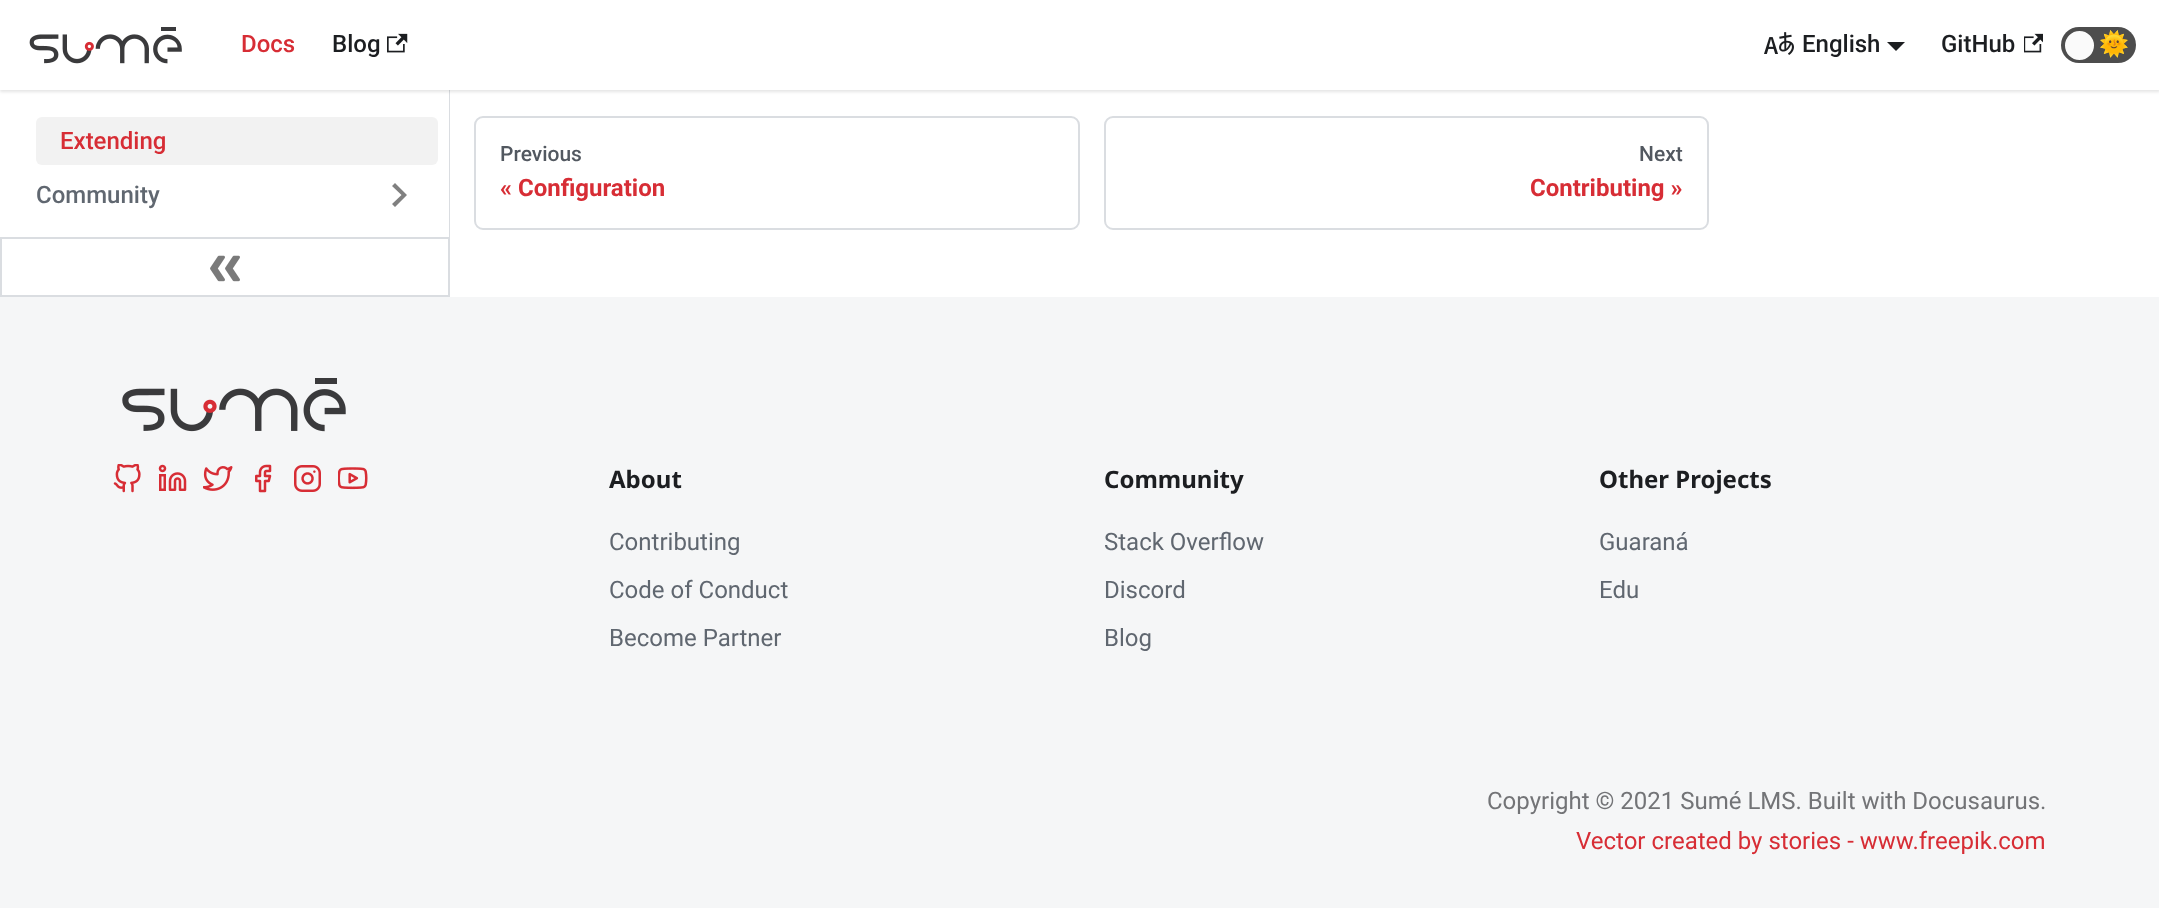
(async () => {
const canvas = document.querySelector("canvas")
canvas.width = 2159
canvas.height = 908
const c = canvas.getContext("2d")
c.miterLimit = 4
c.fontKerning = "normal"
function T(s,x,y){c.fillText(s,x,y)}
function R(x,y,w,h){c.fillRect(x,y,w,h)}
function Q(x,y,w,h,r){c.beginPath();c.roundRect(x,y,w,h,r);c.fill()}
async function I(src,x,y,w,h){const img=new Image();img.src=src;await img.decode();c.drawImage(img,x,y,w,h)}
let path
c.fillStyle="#fff"
R(0,0,2159,908)
c.fillStyle="#dadde1"
R(449,90,1,147)
c.fillStyle="#0000001a"
c.filter="blur(1.5px)"
c.beginPath()
c.rect(0,2,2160,90)
c.fill()
c.filter="none"
c.fillStyle="#fff"
R(0,0,2159,90)
await I("1.png",29,27,153,37)
c.font="500 24px Roboto"
c.fillStyle="#d72d35"
T("Docs",241,52)
c.fillStyle="#1c1e21"
T("Blog",332,52)
await I("2.png",387,33,21,20)
await I("3.png",1764,32,30,23)
T("English",1802,52)
path = new Path2D("M1887 42h18l-9 9z")
c.fill(path)
T("GitHub",1941,52)
await I("4.png",2024,33,19,20)
c.fillStyle="#4d4d4d"
Q(2061,27,75,36,18)
c.fillStyle="#fafafa"
c.beginPath()
c.arc(2079.5,45.5,15.5,0,7)
c.fill()
c.strokeStyle="#4d4d4d"
c.lineWidth=2
c.stroke()
c.font="24px Noto Color Emoji"
c.fillStyle="#1c1e21"
T("🌞",2099,52)
c.fillStyle="#f2f2f2"
Q(36,117,402,48,6)
c.font="500 24px Roboto"
c.fillStyle="#d72d35"
T("Extending",60,149)
c.fillStyle="#606770"
T("Community",36,203)
c.fillStyle="#808080"
path = new Path2D("M392 186l9.5 9l-9.5 9l3 3l12-12l-12-12z")
c.fill(path)
c.strokeStyle="#dadde1"
c.strokeRect(1,238,448,58)
await I("5.png",210,255,30,27)
c.beginPath()
c.roundRect(475,117,604,112,8)
c.stroke()
c.font="500 21px Roboto"
c.fillStyle="#525860"
T("Previous",500,161)
c.font="bold 24px Roboto"
c.fillStyle="#d72d35"
T("« Configuration",500,196)
c.beginPath()
c.roundRect(1105,117,603,112,8)
c.stroke()
c.font="500 21px Roboto"
c.fillStyle="#525860"
T("Next",1639,161)
c.font="bold 24px Roboto"
c.fillStyle="#d72d35"
T("Contributing »",1530,196)
c.fillStyle="#f5f6f7"
R(0,297,2159,611)
await I("6.png",122,378,224,54)
await I("7.png",113,464,28,29)
await I("8.png",158,464,29,27)
await I("9.png",203,466,30,25)
await I("10.png",255,464,17,29)
await I("11.png",294,465,27,27)
await I("12.png",338,467,30,23)
c.font="bold 24px Noto Sans"
c.fillStyle="#1c1e21"
T("About",609,488)
c.font="24px Roboto"
c.fillStyle="#606770"
T("Contributing",609,550)
T("Code of Conduct",609,598)
T("Become Partner",609,646)
c.font="bold 24px Noto Sans"
c.fillStyle="#1c1e21"
T("Community",1104,488)
c.font="24px Roboto"
c.fillStyle="#606770"
T("Stack Overflow",1104,550)
T("Discord",1104,598)
T("Blog",1104,646)
c.font="bold 24px Noto Sans"
c.fillStyle="#1c1e21"
T("Other Projects",1599,488)
c.font="24px Roboto"
c.fillStyle="#606770"
T("Guaraná",1599,550)
T("Edu",1599,598)
c.fillStyle="#737477"
T("Copyright © 2021 Sumé LMS. Built with Docusaurus.",1487,809)
c.fillStyle="#d72d35"
T("Vector created by stories - www.freepik.com",1576,849)
})()
